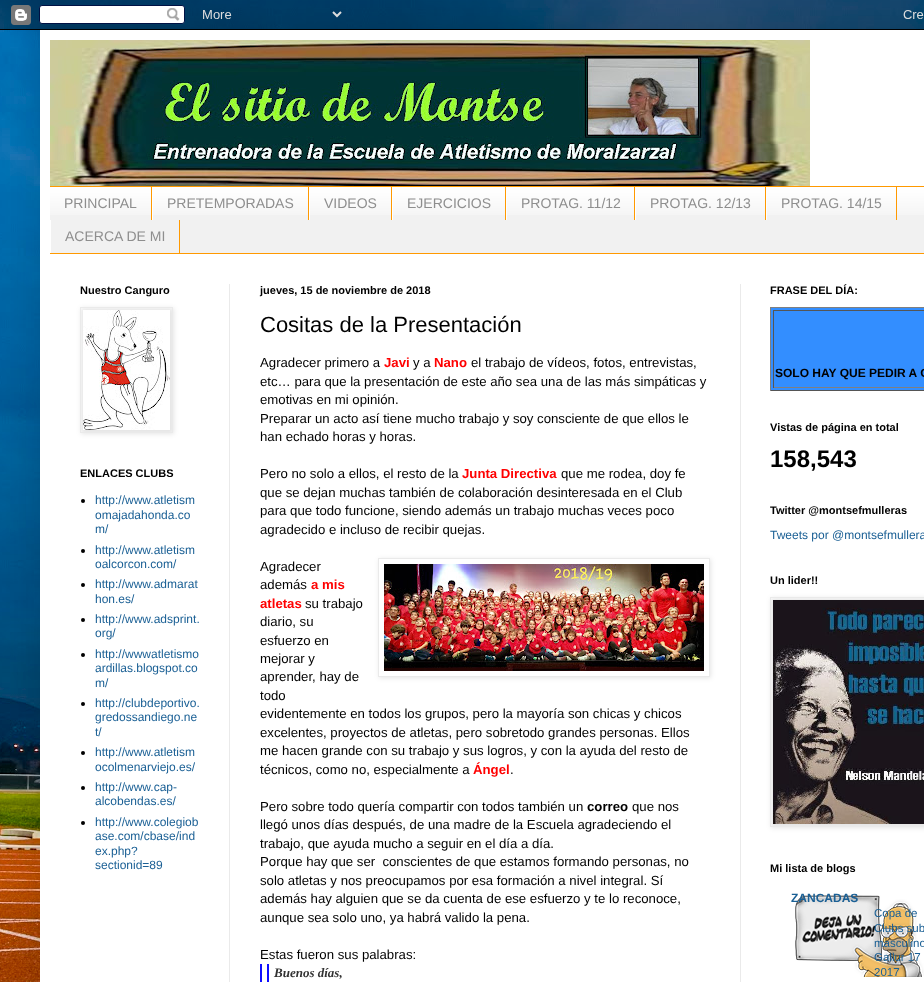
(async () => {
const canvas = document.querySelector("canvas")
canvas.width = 924
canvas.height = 982
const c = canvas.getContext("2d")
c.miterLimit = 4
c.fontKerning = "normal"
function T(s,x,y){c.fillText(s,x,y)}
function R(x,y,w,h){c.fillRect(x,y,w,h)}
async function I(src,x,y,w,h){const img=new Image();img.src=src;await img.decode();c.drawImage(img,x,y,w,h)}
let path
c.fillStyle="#fff"
R(0,0,924,982)
await I("1.png",0,0,924,982)
c.fillStyle="#00000026"
c.filter="blur(20px)"
c.beginPath()
c.rect(40,30,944,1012)
c.fill()
c.filter="none"
await I("2.png",0,0,924,30)
c.fillStyle="#fff"
R(40,30,884,952)
await I("3.png",50,40,760,146)
c.fillStyle="#f1f1f1"
R(50,188,874,65)
await I("4.png",50,187,874,28)
c.fillStyle="#f90"
R(50,186,874,1)
R(50,253,874,1)
R(151,187,1,33)
c.font="14px Liberation Sans"
c.fillStyle="#8e8e8e"
T("PRINCIPAL",64,208)
c.fillStyle="#f90"
R(308,187,1,33)
c.fillStyle="#fff"
R(152,187,1,33)
c.fillStyle="#8e8e8e"
T("PRETEMPORADAS",167,208)
c.fillStyle="#f90"
R(391,187,1,33)
c.fillStyle="#fff"
R(309,187,1,33)
c.fillStyle="#8e8e8e"
T("VIDEOS",324,208)
c.fillStyle="#f90"
R(505,187,1,33)
c.fillStyle="#fff"
R(392,187,1,33)
c.fillStyle="#8e8e8e"
T("EJERCICIOS",407,208)
c.fillStyle="#f90"
R(634,187,1,33)
c.fillStyle="#fff"
R(506,187,1,33)
c.fillStyle="#8e8e8e"
T("PROTAG. 11/12",521,208)
c.fillStyle="#f90"
R(765,187,1,33)
c.fillStyle="#fff"
R(635,187,1,33)
c.fillStyle="#8e8e8e"
T("PROTAG. 12/13",650,208)
c.fillStyle="#f90"
R(896,187,1,33)
c.fillStyle="#fff"
R(766,187,1,33)
c.fillStyle="#8e8e8e"
T("PROTAG. 14/15",781,208)
c.fillStyle="#f90"
R(179,220,1,33)
c.fillStyle="#fff"
R(50,220,1,33)
c.fillStyle="#8e8e8e"
T("ACERCA DE MI",65,241)
c.font="bold 11px Liberation Sans"
c.fillStyle="#000"
T("Nuestro Canguro",80,294)
c.fillStyle="#0000001a"
c.filter="blur(2.5px)"
c.beginPath()
c.rect(81,308,93,126)
c.fill()
c.filter="none"
c.strokeStyle="#eaeaea"
c.strokeRect(80.5,307.5,92,125)
await I("5.png",83,310,87,120)
c.fillStyle="#000"
T("ENLACES CLUBS",80,477)
c.beginPath()
c.arc(83,501,2,0,7)
c.fill()
c.font="12px Liberation Sans"
c.fillStyle="#1b6095"
T("http://www.atletism",95,504)
T("omajadahonda.co",95,519)
T("m/",95,533)
c.fillStyle="#000"
c.beginPath()
c.arc(83,551,2,0,7)
c.fill()
c.fillStyle="#1b6095"
T("http://www.atletism",95,554)
T("oalcorcon.com/",95,568)
c.fillStyle="#000"
c.beginPath()
c.arc(83,585,2,0,7)
c.fill()
c.fillStyle="#1b6095"
T("http://www.admarat",95,588)
T("hon.es/",95,603)
c.fillStyle="#000"
c.beginPath()
c.arc(83,620,2,0,7)
c.fill()
c.fillStyle="#1b6095"
T("http://www.adsprint.",95,623)
T("org/",95,637)
c.fillStyle="#000"
c.beginPath()
c.arc(83,655,2,0,7)
c.fill()
c.fillStyle="#1b6095"
T("http://wwwatletismo",95,658)
T("ardillas.blogspot.co",95,672)
T("m/",95,687)
c.fillStyle="#000"
c.beginPath()
c.arc(83,704,2,0,7)
c.fill()
c.fillStyle="#1b6095"
T("http://clubdeportivo.",95,707)
T("gredossandiego.ne",95,721)
T("t/",95,736)
c.fillStyle="#000"
c.beginPath()
c.arc(83,753,2,0,7)
c.fill()
c.fillStyle="#1b6095"
T("http://www.atletism",95,756)
T("ocolmenarviejo.es/",95,771)
c.fillStyle="#000"
c.beginPath()
c.arc(83,788,2,0,7)
c.fill()
c.fillStyle="#1b6095"
T("http://www.cap-",95,791)
T("alcobendas.es/",95,805)
c.fillStyle="#000"
c.beginPath()
c.arc(83,823,2,0,7)
c.fill()
c.fillStyle="#1b6095"
T("http://www.colegiob",95,826)
T("ase.com/cbase/ind",95,840)
T("ex.php?",95,855)
T("sectionid=89",95,869)
await I("6.png",795,895,129,82)
c.font="bold 11px Liberation Sans"
c.fillStyle="#000"
T("jueves, 15 de noviembre de 2018",260,294)
c.font="22px Liberation Sans"
T("Cositas de la Presentación",260,332)
c.font="13.2px Liberation Sans"
T("Agradecer primero a",260,367)
c.font="bold 13.2px Liberation Sans"
c.fillStyle="#f00"
T("Javi",384,367)
c.font="13.2px Liberation Sans"
c.fillStyle="#000"
T("y a",413,367)
c.font="bold 13.2px Liberation Sans"
c.fillStyle="#f00"
T("Nano",434,367)
c.font="13.2px Liberation Sans"
c.fillStyle="#000"
T("el trabajo de vídeos, fotos, entrevistas,",471,367)
T("etc… para que la presentación de este año sea una de las más simpáticas y",260,386)
T("emotivas en mi opinión.",260,404)
T("Preparar un acto así tiene mucho trabajo y soy consciente de que ellos le",260,423)
T("han echado horas y horas.",260,441)
T("Pero no solo a ellos, el resto de la",260,478)
c.font="bold 13.2px Liberation Sans"
c.fillStyle="#f00"
T("Junta Directiva",462,478)
c.font="13.2px Liberation Sans"
c.fillStyle="#000"
T("que me rodea, doy fe",561,478)
T("que se dejan muchas también de colaboración desinteresada en el Club",260,497)
T("para que todo funcione, siendo además un trabajo muchas veces poco",260,515)
T("agradecido e incluso de recibir quejas.",260,534)
T("Agradecer",260,571)
c.save()
path = new Path2D("M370 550h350v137h-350zm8 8h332v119h-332z")
c.clip(path,"evenodd")
c.fillStyle="#0000001a"
c.filter="blur(2.5px)"
c.beginPath()
c.rect(379,559,332,119)
c.fill()
c.filter="none"
c.restore()
c.strokeRect(378.5,558.5,331,118)
await I("7.png",384,564,320,107)
T("además",260,589)
c.font="bold 13.2px Liberation Sans"
c.fillStyle="#f00"
T("a mis",311,589)
T("atletas",260,608)
c.font="13.2px Liberation Sans"
c.fillStyle="#000"
T("su trabajo",305,608)
T("diario, su",260,626)
T("esfuerzo en",260,645)
T("mejorar y",260,663)
T("aprender, hay de",260,681)
T("todo",260,700)
T("evidentemente en todos los grupos, pero la mayoría son chicas y chicos",260,718)
T("excelentes, proyectos de atletas, pero sobretodo grandes personas. Ellos",260,737)
T("me hacen grande con su trabajo y sus logros, y con la ayuda del resto de",260,755)
T("técnicos, como no, especialmente a",260,774)
c.font="bold 13.2px Liberation Sans"
c.fillStyle="#f00"
T("Ángel",473,774)
c.font="13.2px Liberation Sans"
c.fillStyle="#000"
T(".",510,774)
T("Pero sobre todo quería compartir con todos también un",260,811)
c.font="bold 13.2px Liberation Sans"
T("correo",587,811)
c.font="13.2px Liberation Sans"
T("que nos",632,811)
T("llegó unos días después, de una madre de la Escuela agradeciendo el",260,829)
T("trabajo, que ayuda mucho a seguir en el día a día.",260,848)
T("Porque hay que ser  conscientes de que estamos formando personas, no",260,866)
T("solo atletas y nos preocupamos por esa formación a nivel integral. Sí",260,885)
T("además hay alguien que se da cuenta de ese esfuerzo y te lo reconoce,",260,903)
T("aunque sea solo uno, ya habrá valido la pena.",260,922)
T("Estas fueron sus palabras:",260,959)
c.fillStyle="#1010ff"
R(260,964,2,18)
R(267,964,2,18)
c.font="italic bold 13px Liberation Serif"
c.fillStyle="#333"
T("Buenos días,",274,977)
c.font="bold 11px Liberation Sans"
c.fillStyle="#000"
T("FRASE DEL DÍA:",770,294)
c.fillStyle="#338eff"
R(771,308,153,82)
c.fillStyle="#808080"
R(770,307,154,1)
c.fillStyle="#555"
R(770,390,154,1)
c.fillStyle="#808080"
R(770,307,1,84)
c.fillStyle="#555"
R(773,310,151,1)
c.fillStyle="#808080"
R(773,387,151,1)
c.fillStyle="#555"
R(773,310,1,78)
c.font="bold 12px Liberation Sans"
c.fillStyle="#000"
T("SOLO HAY QUE PEDIR A C",775,377)
c.font="bold 11px Liberation Sans"
T("Vistas de página en total",770,431)
c.font="bold 24px Liberation Sans"
T("158,543",770,467)
c.font="bold 11px Liberation Sans"
T("Twitter @montsefmulleras",770,514)
c.font="12px Liberation Sans"
c.fillStyle="#1b6095"
T("Tweets por @montsefmullera",770,539)
c.font="bold 11px Liberation Sans"
c.fillStyle="#000"
T("Un lider!!",770,584)
c.fillStyle="#0000001a"
c.filter="blur(2.5px)"
c.beginPath()
c.rect(771,598,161,230)
c.fill()
c.filter="none"
c.strokeRect(770.5,597.5,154,229)
await I("8.png",773,600,151,224)
c.fillStyle="#000"
T("Mi lista de blogs",770,872)
c.font="bold 12px Liberation Sans"
c.fillStyle="#1b6095"
T("ZANCADAS",791,902)
c.font="11.5px Liberation Sans"
T("Copa de",874,917)
T("Clubs sub",874,932)
T("masculino",874,947)
T("Gallur 17",874,961)
T("2017",874,976)
c.fillStyle="#eaeaea"
R(229,284,1,698)
R(740,284,1,698)
})()
